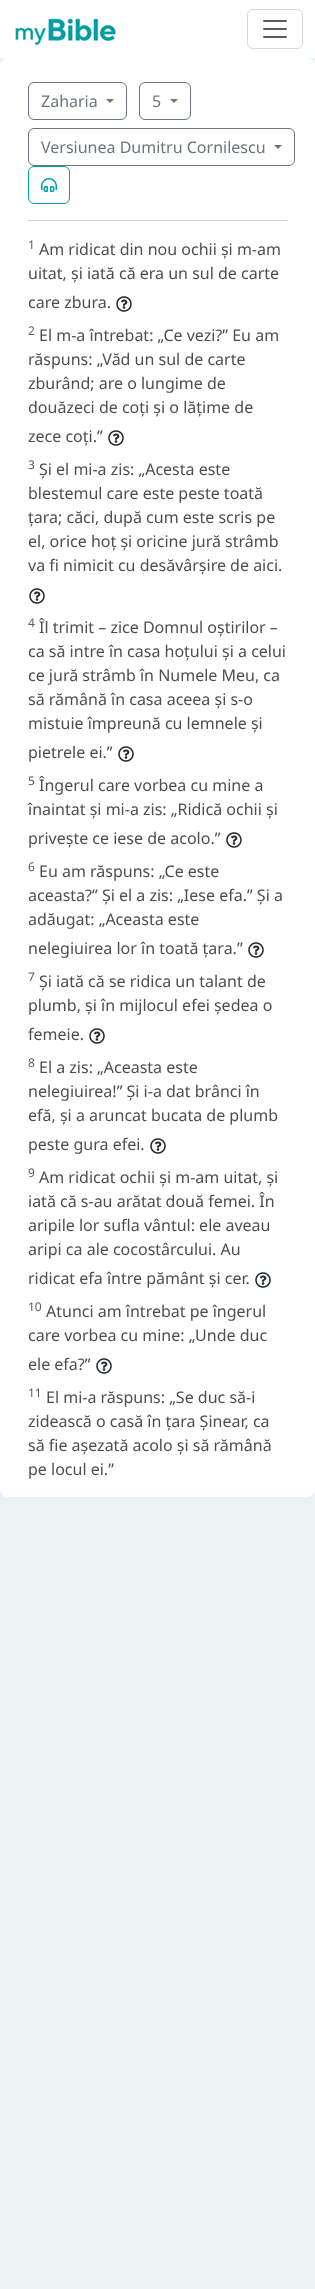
(async () => {
const canvas = document.querySelector("canvas")
canvas.width = 315
canvas.height = 2289
const c = canvas.getContext("2d")
c.miterLimit = 4
c.fontKerning = "normal"
function T(s,x,y){c.fillText(s,x,y)}
function R(x,y,w,h){c.fillRect(x,y,w,h)}
function Q(x,y,w,h,r){c.beginPath();c.roundRect(x,y,w,h,r);c.fill()}
async function I(src,x,y,w,h){const img=new Image();img.src=src;await img.decode();c.drawImage(img,x,y,w,h)}
let path
c.fillStyle="#ecf1f1"
R(0,0,315,2289)
c.fillStyle="#fff"
R(0,0,315,58)
await I("1.png",15,18,101,27)
c.beginPath()
c.roundRect(247.5,9.5,55,39,5.5)
c.strokeStyle="#d9d9d9"
c.stroke()
await I("2.png",263,20,24,18)
Q(0,58,315,1439,8)
c.beginPath()
c.roundRect(28.5,82.5,98,37,5.5)
c.strokeStyle="#6c757d"
c.stroke()
c.font="16px Noto Sans"
c.fillStyle="#6c757d"
T("Zaharia",41,107)
path = new Path2D("M106 99h8l-4 4z")
c.fill(path)
c.beginPath()
c.roundRect(139.5,82.5,51,37,5.5)
c.stroke()
T("5",152,107)
path = new Path2D("M170 99h8l-4 4z")
c.fill(path)
c.beginPath()
c.roundRect(28.5,128.5,266,37,5.5)
c.stroke()
T("Versiunea Dumitru Cornilescu",41,153)
path = new Path2D("M274 145h8l-4 4z")
c.fill(path)
c.beginPath()
c.roundRect(28.5,166.5,41,37,5.5)
c.strokeStyle="#00a0a7"
c.stroke()
await I("3.png",41,178,16,14)
c.fillStyle="#d3d3d3"
R(28,220,259,1)
c.font="12px Noto Sans"
c.fillStyle="#595c5f"
T("1",28,249)
c.font="16px Noto Sans"
c.fillStyle="#4f4e4e"
T("Am ridicat din nou ochii și m-am",39,255)
T("uitat, și iată că era un sul de carte",28,279)
T("care zbura.",28,308)
await I("4.png",116,296,16,16)
c.font="12px Noto Sans"
c.fillStyle="#595c5f"
T("2",28,335)
c.font="16px Noto Sans"
c.fillStyle="#4f4e4e"
T("El m-a întrebat: „Ce vezi?” Eu am",39,341)
T("răspuns: „Văd un sul de carte",28,365)
T("zburând; are o lungime de",28,389)
T("douăzeci de coți și o lățime de",28,413)
T("zece coți.”",28,442)
await I("4.png",108,430,16,16)
c.font="12px Noto Sans"
c.fillStyle="#595c5f"
T("3",28,469)
c.font="16px Noto Sans"
c.fillStyle="#4f4e4e"
T("Și el mi-a zis: „Acesta este",39,475)
T("blestemul care este peste toată",28,499)
T("țara; căci, după cum este scris pe",28,523)
T("el, orice hoț și oricine jură strâmb",28,547)
T("va fi nimicit cu desăvârșire de aici.",28,571)
await I("4.png",29,588,16,16)
c.font="12px Noto Sans"
c.fillStyle="#595c5f"
T("4",28,627)
c.font="16px Noto Sans"
c.fillStyle="#4f4e4e"
T("Îl trimit – zice Domnul oștirilor –",39,633)
T("ca să intre în casa hoțului și a celui",28,657)
T("ce jură strâmb în Numele Meu, ca",28,681)
T("să rămână în casa aceea și s-o",28,705)
T("mistuie împreună cu lemnele și",28,729)
T("pietrele ei.”",28,758)
await I("4.png",118,746,16,16)
c.font="12px Noto Sans"
c.fillStyle="#595c5f"
T("5",28,785)
c.font="16px Noto Sans"
c.fillStyle="#4f4e4e"
T("Îngerul care vorbea cu mine a",39,791)
T("înaintat și mi-a zis: „Ridică ochii și",28,815)
T("privește ce iese de acolo.”",28,844)
await I("4.png",226,832,16,16)
c.font="12px Noto Sans"
c.fillStyle="#595c5f"
T("6",28,871)
c.font="16px Noto Sans"
c.fillStyle="#4f4e4e"
T("Eu am răspuns: „Ce este",39,877)
T("aceasta?” Și el a zis: „Iese efa.” Și a",28,901)
T("adăugat: „Aceasta este",28,925)
T("nelegiuirea lor în toată țara.”",28,954)
await I("4.png",248,942,16,16)
c.font="12px Noto Sans"
c.fillStyle="#595c5f"
T("7",28,981)
c.font="16px Noto Sans"
c.fillStyle="#4f4e4e"
T("Și iată că se ridica un talant de",39,987)
T("plumb, și în mijlocul efei ședea o",28,1011)
T("femeie.",28,1040)
await I("4.png",89,1028,16,16)
c.font="12px Noto Sans"
c.fillStyle="#595c5f"
T("8",28,1067)
c.font="16px Noto Sans"
c.fillStyle="#4f4e4e"
T("El a zis: „Aceasta este",39,1073)
T("nelegiuirea!” Și i-a dat brânci în",28,1097)
T("efă, și a aruncat bucata de plumb",28,1121)
T("peste gura efei.",28,1150)
await I("4.png",150,1138,16,16)
c.font="12px Noto Sans"
c.fillStyle="#595c5f"
T("9",28,1177)
c.font="16px Noto Sans"
c.fillStyle="#4f4e4e"
T("Am ridicat ochii și m-am uitat, și",39,1183)
T("iată că s-au arătat două femei. În",28,1207)
T("aripile lor sufla vântul: ele aveau",28,1231)
T("aripi ca ale cocostârcului. Au",28,1255)
T("ridicat efa între pământ și cer.",28,1284)
await I("4.png",255,1272,16,16)
c.font="12px Noto Sans"
c.fillStyle="#595c5f"
T("10",28,1311)
c.font="16px Noto Sans"
c.fillStyle="#4f4e4e"
T("Atunci am întrebat pe îngerul",46,1317)
T("care vorbea cu mine: „Unde duc",28,1341)
T("ele efa?”",28,1370)
await I("4.png",96,1358,16,16)
c.font="12px Noto Sans"
c.fillStyle="#595c5f"
T("11",28,1397)
c.font="16px Noto Sans"
c.fillStyle="#4f4e4e"
T("El mi-a răspuns: „Se duc să-i",46,1403)
T("zidească o casă în țara Șinear, ca",28,1427)
T("să fie așezată acolo și să rămână",28,1451)
T("pe locul ei.”",28,1475)
})()
